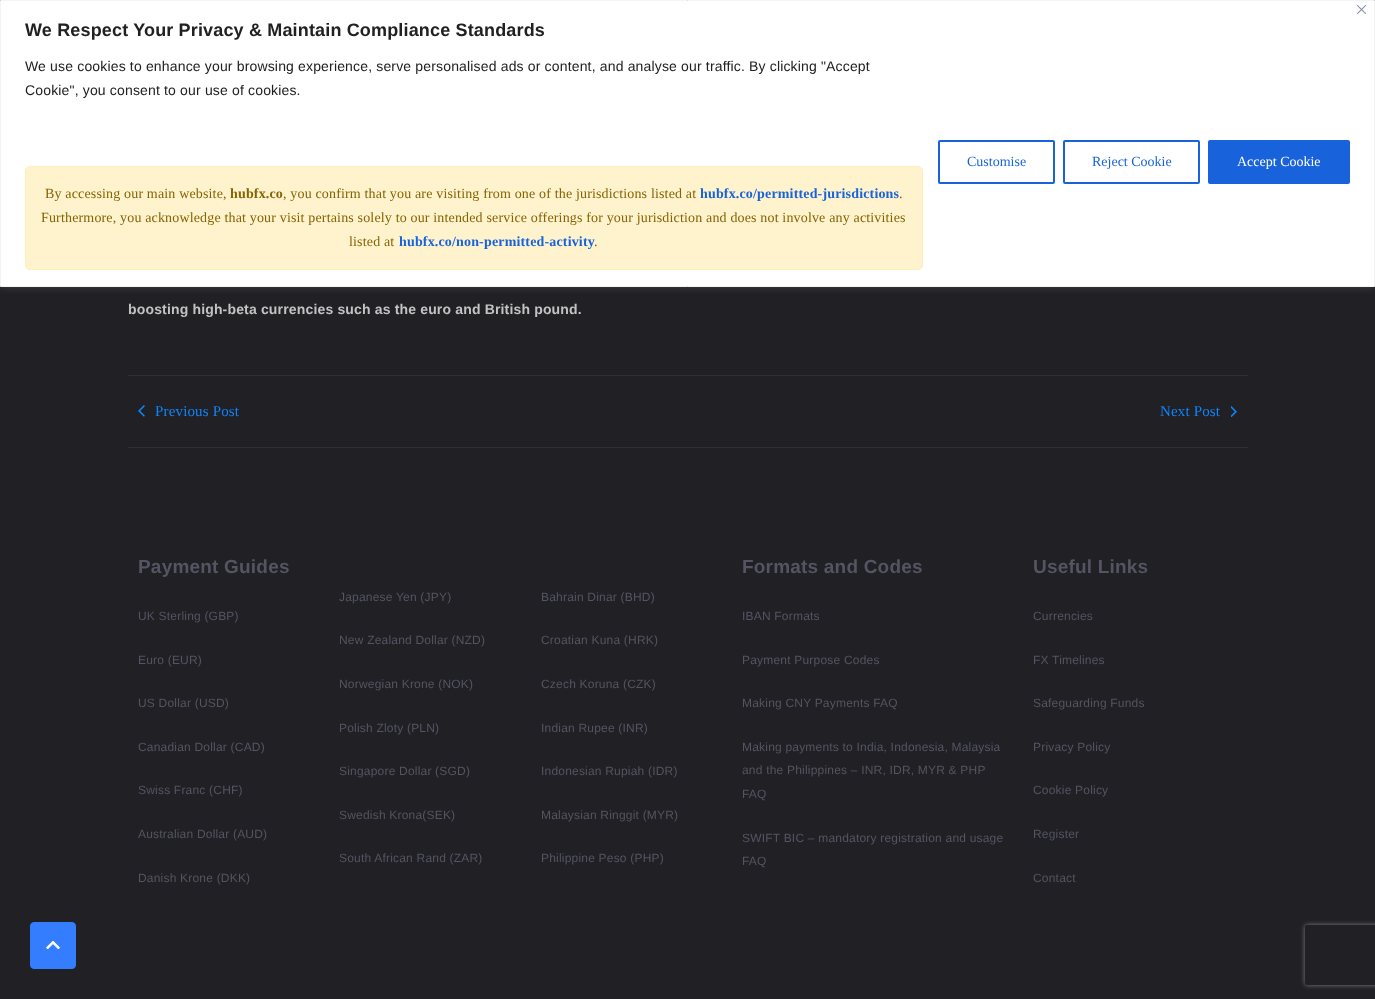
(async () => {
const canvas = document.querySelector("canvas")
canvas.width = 1375
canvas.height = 999
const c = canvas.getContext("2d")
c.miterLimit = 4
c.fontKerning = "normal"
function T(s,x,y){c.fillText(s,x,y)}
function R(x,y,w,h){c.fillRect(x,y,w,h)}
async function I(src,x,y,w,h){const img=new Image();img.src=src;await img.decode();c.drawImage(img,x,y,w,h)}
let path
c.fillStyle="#202025"
R(0,0,1375,999)
c.fillStyle="#acabab4d"
c.filter="blur(5px)"
c.beginPath()
c.rect(0,-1,1375,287)
c.fill()
c.filter="none"
c.fillStyle="#fff"
c.beginPath()
c.rect(.5,.5,1374,286)
c.fill()
c.strokeStyle="#f4f4f4"
c.stroke()
await I("1.png",1357,5,9,9)
c.letterSpacing="0.16px"
c.font="bold 18px Liberation Sans"
c.fillStyle="#212121"
T("We Respect Your Privacy & Maintain Compliance Standards",25,36)
c.font="14px Liberation Sans"
T("We use cookies to enhance your browsing experience, serve personalised ads or content, and analyse our traffic. By clicking \"Accept",25,71)
T("Cookie\", you consent to our use of cookies.",25,95)
c.fillStyle="#fff3cd"
c.beginPath()
c.roundRect(25.5,166.5,897,103,4.5)
c.fill()
c.strokeStyle="#ffeeba"
c.stroke()
c.font="14px Liberation Serif"
c.fillStyle="#856404"
T("By accessing our main website,",45,198)
c.font="bold 14px Liberation Serif"
T("hubfx.co",230,198)
c.font="14px Liberation Serif"
T(", you confirm that you are visiting from one of the jurisdictions listed at",283,198)
c.font="bold 14px Liberation Serif"
c.fillStyle="#1863dc"
T("hubfx.co/permitted-jurisdictions",700,198)
c.font="14px Liberation Serif"
c.fillStyle="#856404"
T(".",899,198)
T("Furthermore, you acknowledge that your visit pertains solely to our intended service offerings for your jurisdiction and does not involve any activities",41,222)
T("listed at",349,246)
c.font="bold 14px Liberation Serif"
c.fillStyle="#1863dc"
T("hubfx.co/non-permitted-activity",399,246)
c.font="14px Liberation Serif"
c.fillStyle="#856404"
T(".",594,246)
c.beginPath()
c.roundRect(939,141,115,42,1)
c.strokeStyle="#1863dc"
c.lineWidth=2
c.stroke()
c.letterSpacing="0px"
c.fillStyle="#1863dc"
T("Customise",967,166)
c.beginPath()
c.roundRect(1064,141,135,42,1)
c.stroke()
T("Reject Cookie",1092,166)
c.beginPath()
c.roundRect(1209,141,140,42,1)
c.fill()
c.stroke()
c.fillStyle="#fff"
T("Accept Cookie",1237,166)
c.letterSpacing="0.16px"
c.font="bold 14px Liberation Sans"
c.fillStyle="#c3c3c3"
T("boosting high-beta currencies such as the euro and British pound.",128,314)
c.fillStyle="#2f2f38"
R(128,375,1120,1)
await I("2.png",138,405,7,12)
c.font="15px Liberation Serif"
c.fillStyle="#1085fa"
T("Previous Post",155,416)
T("Next Post",1160,416)
await I("3.png",1231,405,6,12)
c.fillStyle="#2f2f38"
R(128,447,1120,1)
c.letterSpacing="0.2px"
c.font="bold 19px Liberation Sans"
c.fillStyle="#545463"
T("Payment Guides",138,573)
c.font="12px Liberation Sans"
T("UK Sterling (GBP)",138,620)
T("Euro (EUR)",138,664)
T("US Dollar (USD)",138,707)
T("Canadian Dollar (CAD)",138,751)
T("Swiss Franc (CHF)",138,794)
T("Australian Dollar (AUD)",138,838)
T("Danish Krone (DKK)",138,882)
T("Japanese Yen (JPY)",339,601)
T("New Zealand Dollar (NZD)",339,644)
T("Norwegian Krone (NOK)",339,688)
T("Polish Zloty (PLN)",339,732)
T("Singapore Dollar (SGD)",339,775)
T("Swedish Krona(SEK)",339,819)
T("South African Rand (ZAR)",339,862)
T("Bahrain Dinar (BHD)",541,601)
T("Croatian Kuna (HRK)",541,644)
T("Czech Koruna (CZK)",541,688)
T("Indian Rupee (INR)",541,732)
T("Indonesian Rupiah (IDR)",541,775)
T("Malaysian Ringgit (MYR)",541,819)
T("Philippine Peso (PHP)",541,862)
c.font="bold 19px Liberation Sans"
T("Formats and Codes",742,573)
c.font="12px Liberation Sans"
T("IBAN Formats",742,620)
T("Payment Purpose Codes",742,664)
T("Making CNY Payments FAQ",742,707)
T("Making payments to India, Indonesia, Malaysia",742,751)
T("and the Philippines – INR, IDR, MYR & PHP",742,774)
T("FAQ",742,798)
T("SWIFT BIC – mandatory registration and usage",742,842)
T("FAQ",742,865)
c.font="bold 19px Liberation Sans"
T("Useful Links",1033,573)
c.font="12px Liberation Sans"
T("Currencies",1033,620)
T("FX Timelines",1033,664)
T("Safeguarding Funds",1033,707)
T("Privacy Policy",1033,751)
T("Cookie Policy",1033,794)
T("Register",1033,838)
T("Contact",1033,882)
c.fillStyle="#347dfe"
c.beginPath()
c.roundRect(30.5,922.5,45,46,3.5)
c.fill()
c.strokeStyle="#347dfe"
c.lineWidth=1
c.stroke()
await I("4.png",46,940,14,10)
c.save()
path = new Path2D("M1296 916h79v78h-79zm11 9h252c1 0 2 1 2 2v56c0 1-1 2-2 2h-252c-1 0-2-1-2-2v-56c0-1 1-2 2-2z")
c.clip(path,"evenodd")
c.fillStyle="#808080"
c.filter="blur(2.5px)"
c.beginPath()
c.roundRect(1305,925,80,60,2)
c.fill()
c.filter="none"
c.restore()
})()
